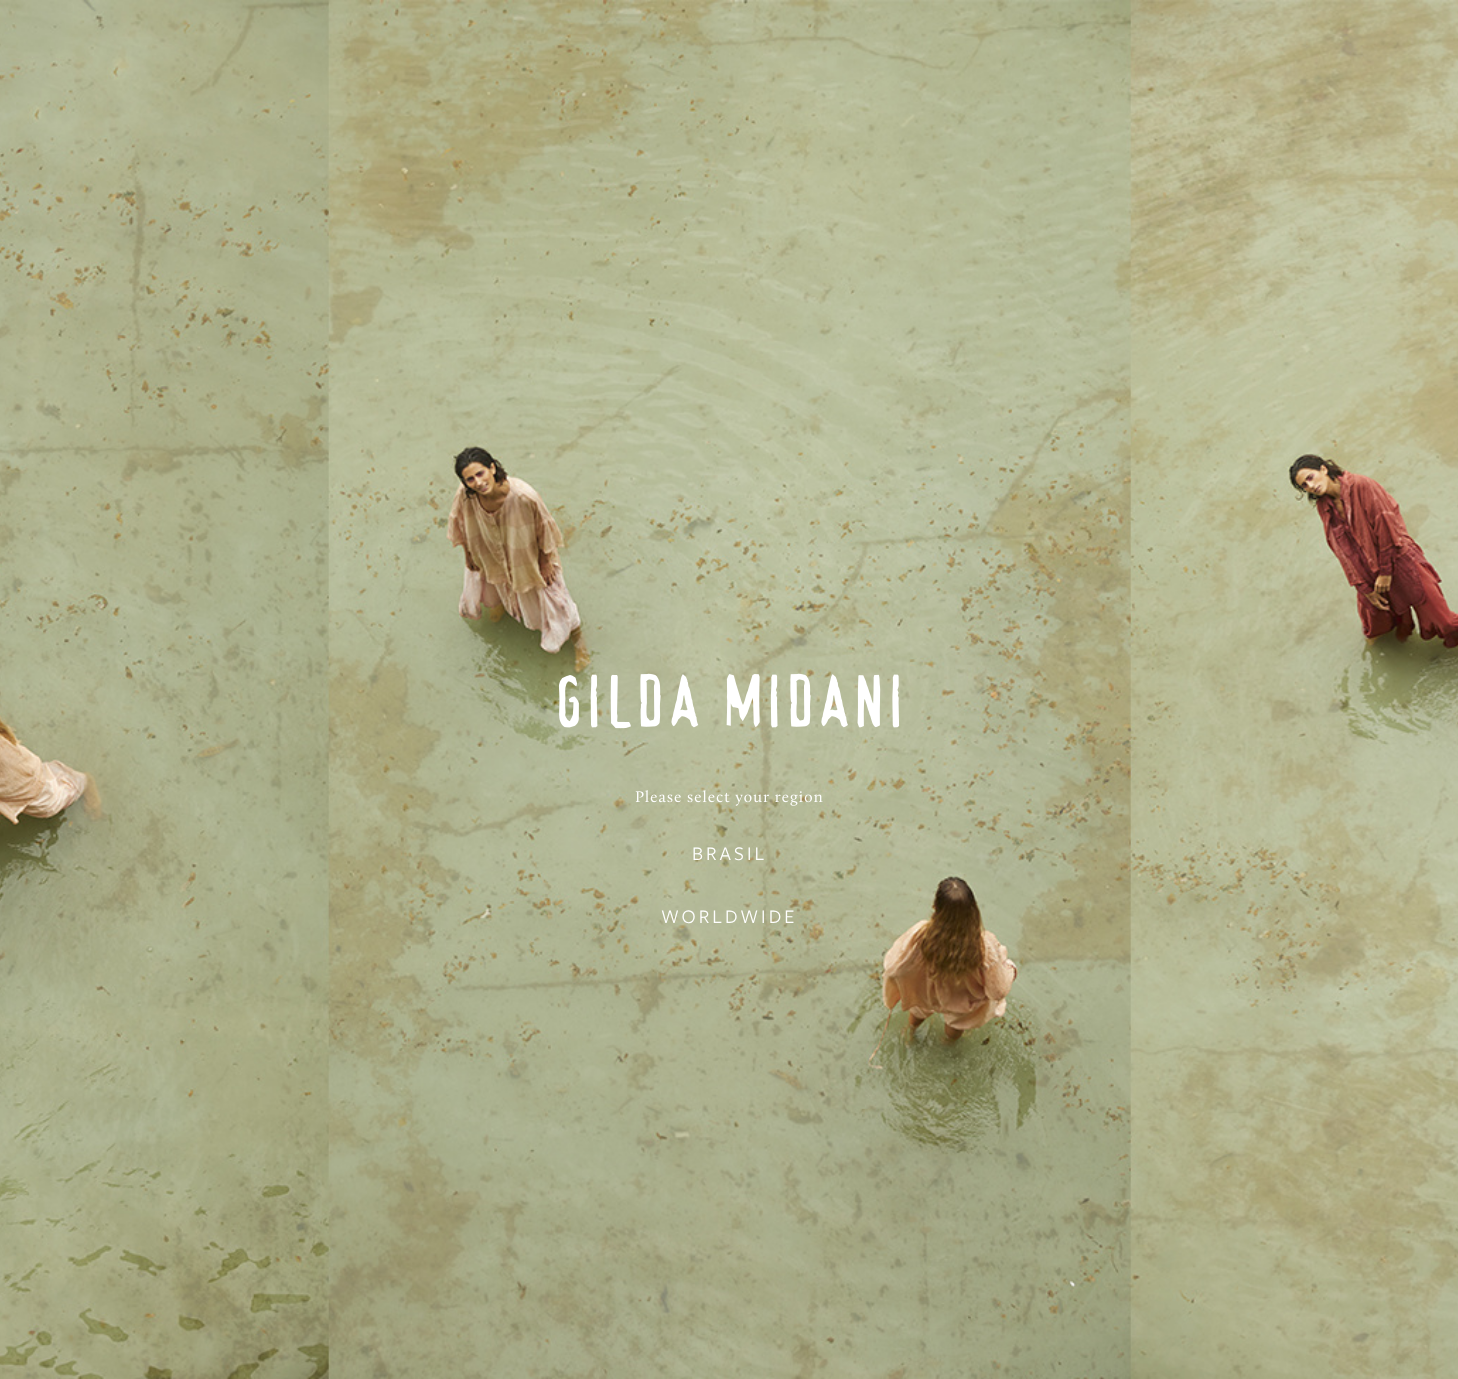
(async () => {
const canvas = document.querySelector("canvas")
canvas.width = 1458
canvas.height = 1379
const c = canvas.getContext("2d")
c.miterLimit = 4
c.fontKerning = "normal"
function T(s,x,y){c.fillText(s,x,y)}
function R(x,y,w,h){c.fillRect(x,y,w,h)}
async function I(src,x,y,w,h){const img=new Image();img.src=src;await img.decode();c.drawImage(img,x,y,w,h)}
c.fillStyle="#fff"
R(0,0,1458,1379)
await I("1.png",0,0,1458,1379)
await I("2.png",558,673,342,56)
await I("3.png",635,790,188,16)
c.letterSpacing="3px"
c.font="20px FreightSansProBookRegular"
T("BRASIL",692,860)
T("WORLDWIDE",661,923)
})()
